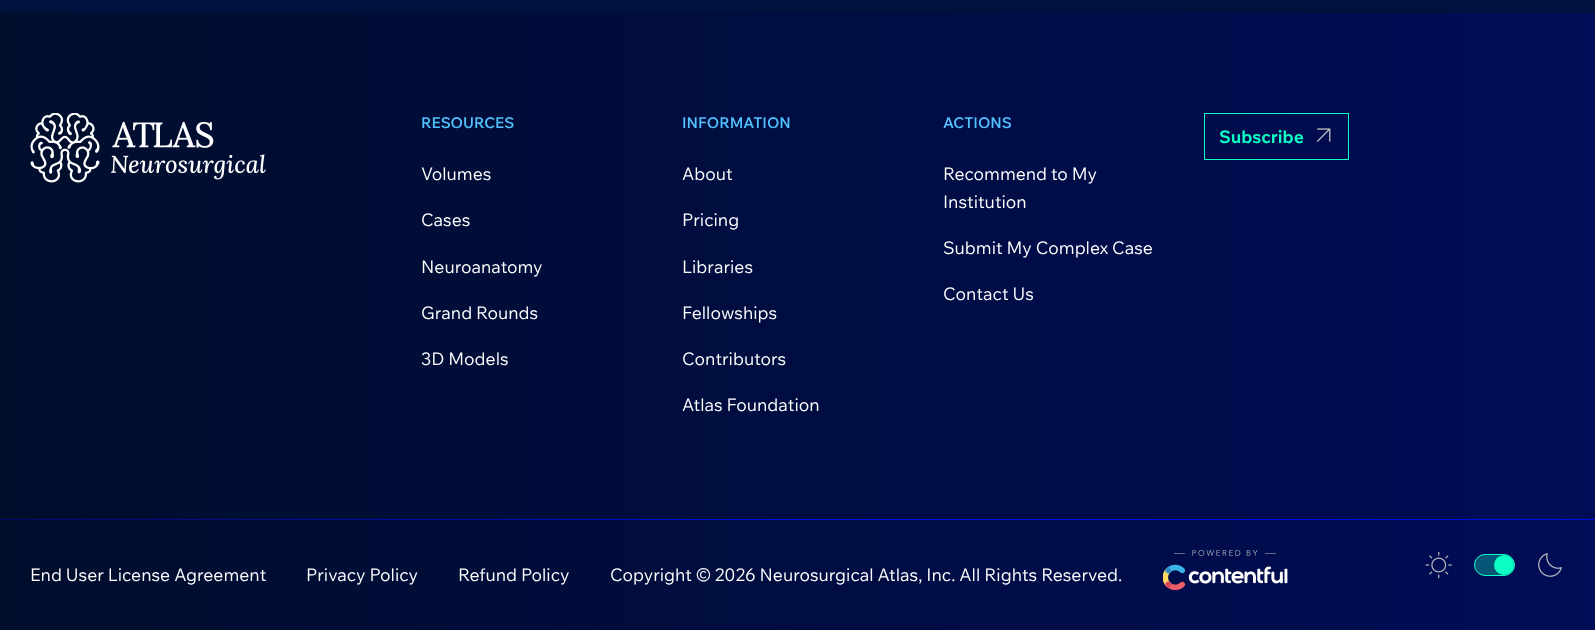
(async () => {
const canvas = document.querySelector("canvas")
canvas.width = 1595
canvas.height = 630
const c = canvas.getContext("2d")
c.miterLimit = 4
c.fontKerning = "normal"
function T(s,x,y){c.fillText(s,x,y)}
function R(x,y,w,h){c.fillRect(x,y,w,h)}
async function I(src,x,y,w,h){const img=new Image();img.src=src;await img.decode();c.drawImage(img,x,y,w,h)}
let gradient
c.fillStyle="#fff"
R(0,0,1595,630)
gradient = c.createLinearGradient(797,-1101,798,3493)
gradient.addColorStop(0,"#00132e")
gradient.addColorStop(1,"#000b6e")
c.fillStyle = gradient
R(0,0,1595,13)
gradient = c.createLinearGradient(-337,321,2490,321)
gradient.addColorStop(0,"#000e23")
gradient.addColorStop(1,"#000b6e")
c.fillStyle = gradient
R(0,13,1595,617)
await I("1.png",30,113,236,70)
c.font="600 15px Wix Madefor Text"
c.fillStyle="#52c1ff"
T("RESOURCES",421,128)
c.font="17.5px Wix Madefor Text"
c.fillStyle="#fff"
T("Volumes",421,180)
T("Cases",421,226)
T("Neuroanatomy",421,273)
T("Grand Rounds",421,319)
T("3D Models",421,365)
c.font="600 15px Wix Madefor Text"
c.fillStyle="#52c1ff"
T("INFORMATION",682,128)
c.font="17.5px Wix Madefor Text"
c.fillStyle="#fff"
T("About",682,180)
T("Pricing",682,226)
T("Libraries",682,273)
T("Fellowships",682,319)
T("Contributors",682,365)
T("Atlas Foundation",682,411)
c.font="600 15px Wix Madefor Text"
c.fillStyle="#52c1ff"
T("ACTIONS",943,128)
c.font="17.5px Wix Madefor Text"
c.fillStyle="#fff"
T("Recommend to My",943,180)
T("Institution",943,208)
T("Submit My Complex Case",943,254)
T("Contact Us",943,300)
await I("2.png",1316,128,15,14)
c.strokeStyle="#0dffc5"
c.strokeRect(1204.5,113.5,144,46)
c.font="bold 17.5px Wix Madefor Text"
c.fillStyle="#0dffc5"
T("Subscribe",1219,143)
gradient = c.createLinearGradient(0,519,1595,519)
gradient.addColorStop(0,"#000b6e")
gradient.addColorStop(.5,"#000ee1")
c.fillStyle = gradient
R(0,519,1595,1)
c.font="17.5px Wix Madefor Text"
c.fillStyle="#fff"
T("End User License Agreement",30,581)
T("Privacy Policy",306,581)
T("Refund Policy",458,581)
T("Copyright © 2026 Neurosurgical Atlas, Inc. All Rights Reserved.",610,581)
await I("3.png",1163,550,125,40)
await I("4.png",1425,551,27,28)
c.fillStyle="#045576"
c.beginPath()
c.roundRect(1474.5,554.5,40,21,10.5)
c.fill()
c.stroke()
c.fillStyle="#0dffc5"
c.beginPath()
c.arc(1504,565,10,0,7)
c.fill()
await I("5.png",1538,553,24,24)
})()
